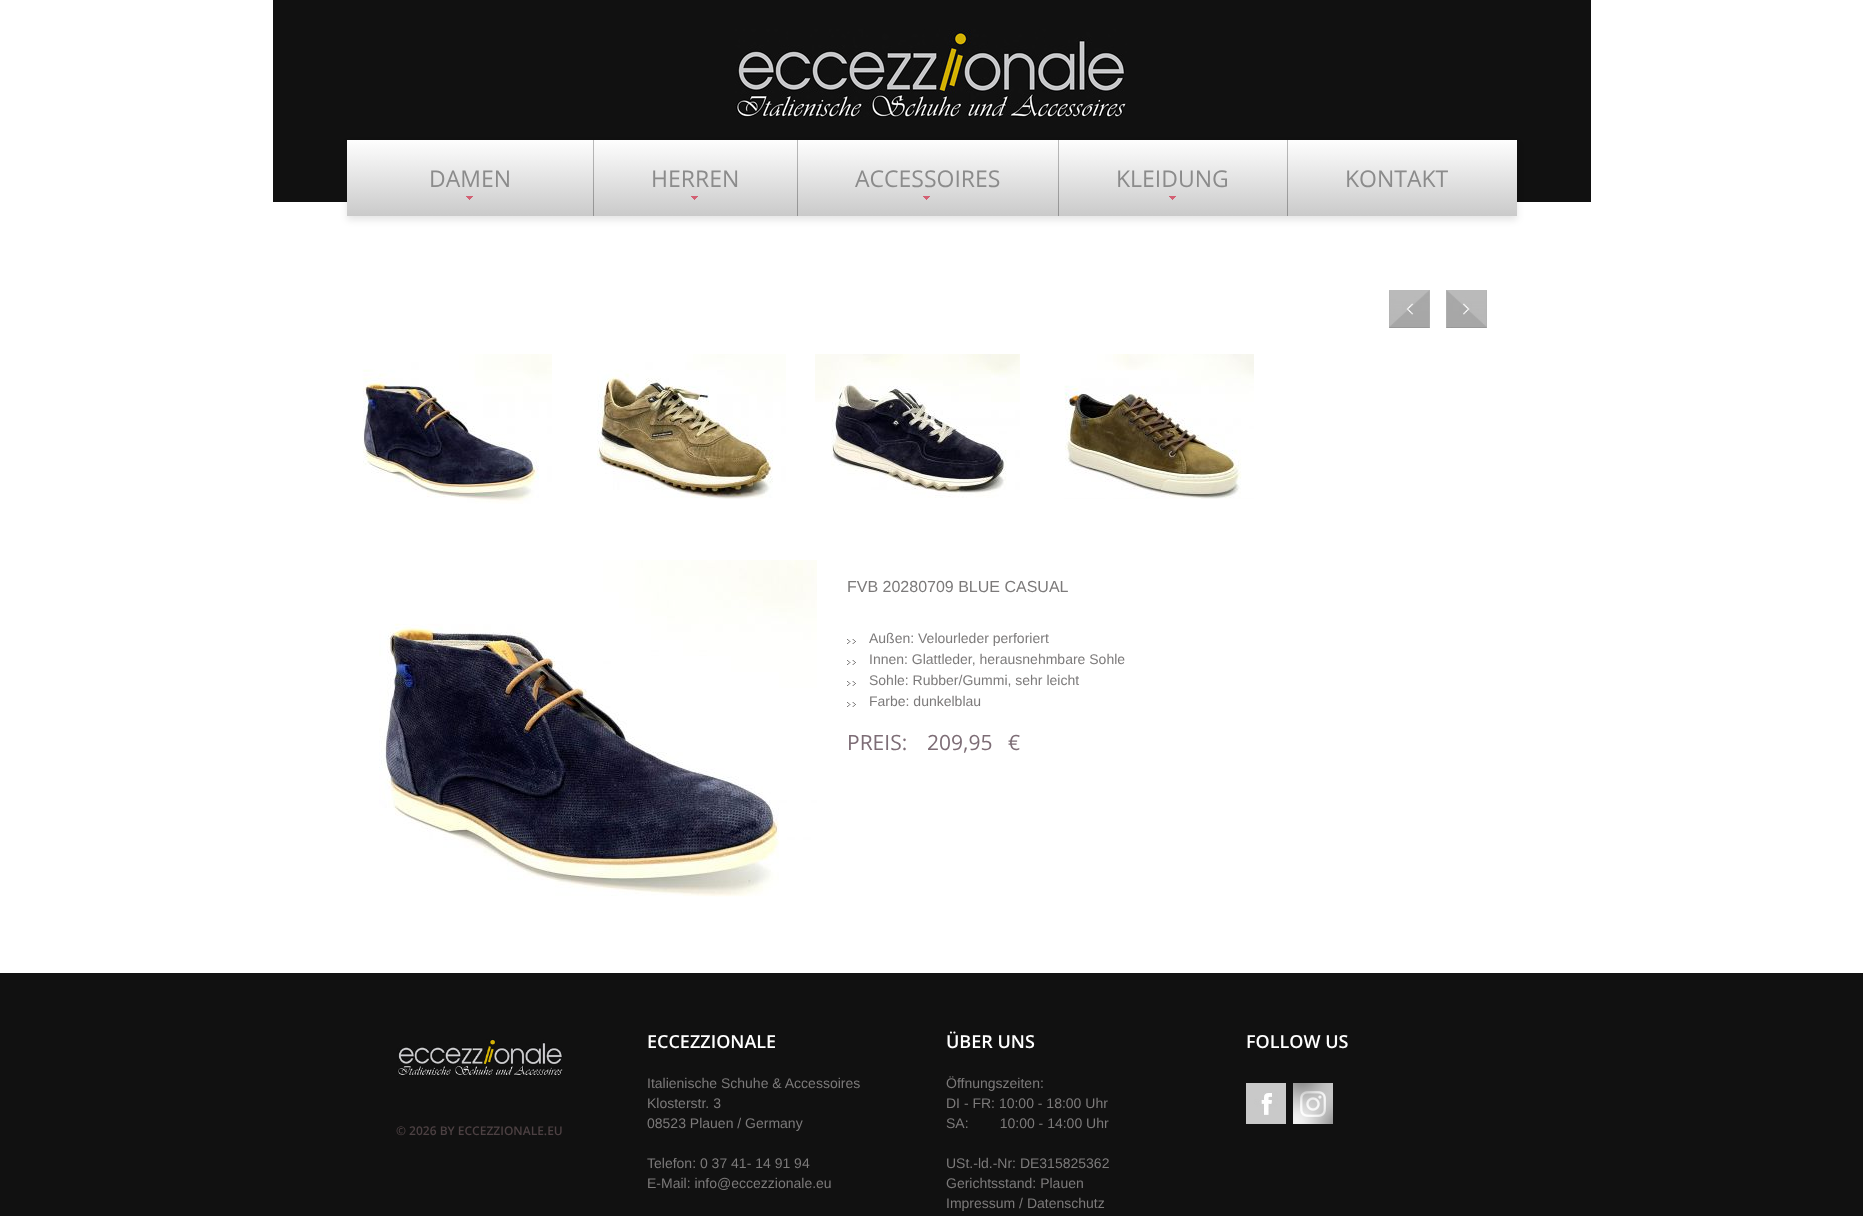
(async () => {
const canvas = document.querySelector("canvas")
canvas.width = 1863
canvas.height = 1216
const c = canvas.getContext("2d")
c.miterLimit = 4
c.fontKerning = "normal"
function T(s,x,y){c.fillText(s,x,y)}
function R(x,y,w,h){c.fillRect(x,y,w,h)}
async function I(src,x,y,w,h){const img=new Image();img.src=src;await img.decode();c.drawImage(img,x,y,w,h)}
let gradient
c.fillStyle="#111"
R(0,0,1863,1216)
c.fillStyle="#fff"
R(0,0,1863,973)
c.fillStyle="#111"
R(273,0,1318,202)
await I("1.png",735,29,392,89)
c.fillStyle="#0000001a"
c.filter="blur(3.5px)"
c.beginPath()
c.rect(347,144,1170,76)
c.fill()
c.filter="none"
gradient = c.createLinearGradient(932,140,932,216)
gradient.addColorStop(0,"#fefefe")
gradient.addColorStop(1,"#cacaca")
c.fillStyle = gradient
R(347,140,1170,76)
c.font="23px Open Sans"
c.fillStyle="#8b8b8b"
T("DAMEN",429,187)
await I("2.png",466,196,7,4)
await I("3.png",593,140,1,76)
T("HERREN",651,187)
await I("2.png",691,196,7,4)
await I("3.png",797,140,1,76)
T("ACCESSOIRES",855,187)
await I("2.png",923,196,7,4)
await I("3.png",1058,140,1,76)
T("KLEIDUNG",1116,187)
await I("2.png",1169,196,7,4)
await I("3.png",1287,140,1,76)
T("KONTAKT",1345,187)
await I("4.png",1389,290,41,38)
await I("5.png",1446,290,41,38)
await I("6.png",362,354,190,150)
await I("7.png",597,354,189,145)
await I("8.png",815,354,205,144)
await I("9.png",1064,354,190,145)
await I("10.png",379,560,438,337)
c.font="16px Liberation Sans"
c.fillStyle="#7c7a7a"
T("FVB 20280709 BLUE CASUAL",847,592)
await I("11.png",847,639,9,5)
c.font="14px Liberation Sans"
T("Außen: Velourleder perforiert",869,643)
await I("11.png",847,660,9,5)
T("Innen: Glattleder, herausnehmbare Sohle",869,664)
await I("11.png",847,681,9,5)
T("Sohle: Rubber/Gummi, sehr leicht",869,685)
await I("11.png",847,702,9,5)
T("Farbe: dunkelblau",869,706)
c.font="21px Open Sans"
c.fillStyle="#7d6d76"
T("PREIS:",847,750)
T("209,95",927,750)
T("€",1008,750)
await I("12.png",397,1039,166,38)
c.font="600 12px Open Sans"
c.fillStyle="#4d4143"
T("© 2026 BY ECCEZZIONALE.EU",396,1135)
c.font="600 18px Open Sans"
c.fillStyle="#fff"
T("ECCEZZIONALE",647,1048)
c.font="14px Liberation Sans"
c.fillStyle="#7c7a7a"
T("Italienische Schuhe & Accessoires",647,1088)
T("Klosterstr. 3",647,1108)
T("08523 Plauen / Germany",647,1128)
T("Telefon: 0 37 41- 14 91 94",647,1168)
T("E-Mail: info@eccezzionale.eu",647,1188)
c.font="600 18px Open Sans"
c.fillStyle="#fff"
T("ÜBER UNS",946,1048)
c.font="14px Liberation Sans"
c.fillStyle="#7c7a7a"
T("Öffnungszeiten:",946,1088)
T("DI - FR: 10:00 - 18:00 Uhr",946,1108)
T("SA:        10:00 - 14:00 Uhr",946,1128)
T("USt.-ld.-Nr: DE315825362",946,1168)
T("Gerichtsstand: Plauen",946,1188)
T("Impressum / Datenschutz",946,1208)
c.font="600 18px Open Sans"
c.fillStyle="#fff"
T("FOLLOW US",1246,1048)
await I("13.png",1246,1083,40,41)
await I("14.png",1293,1083,40,41)
})()
